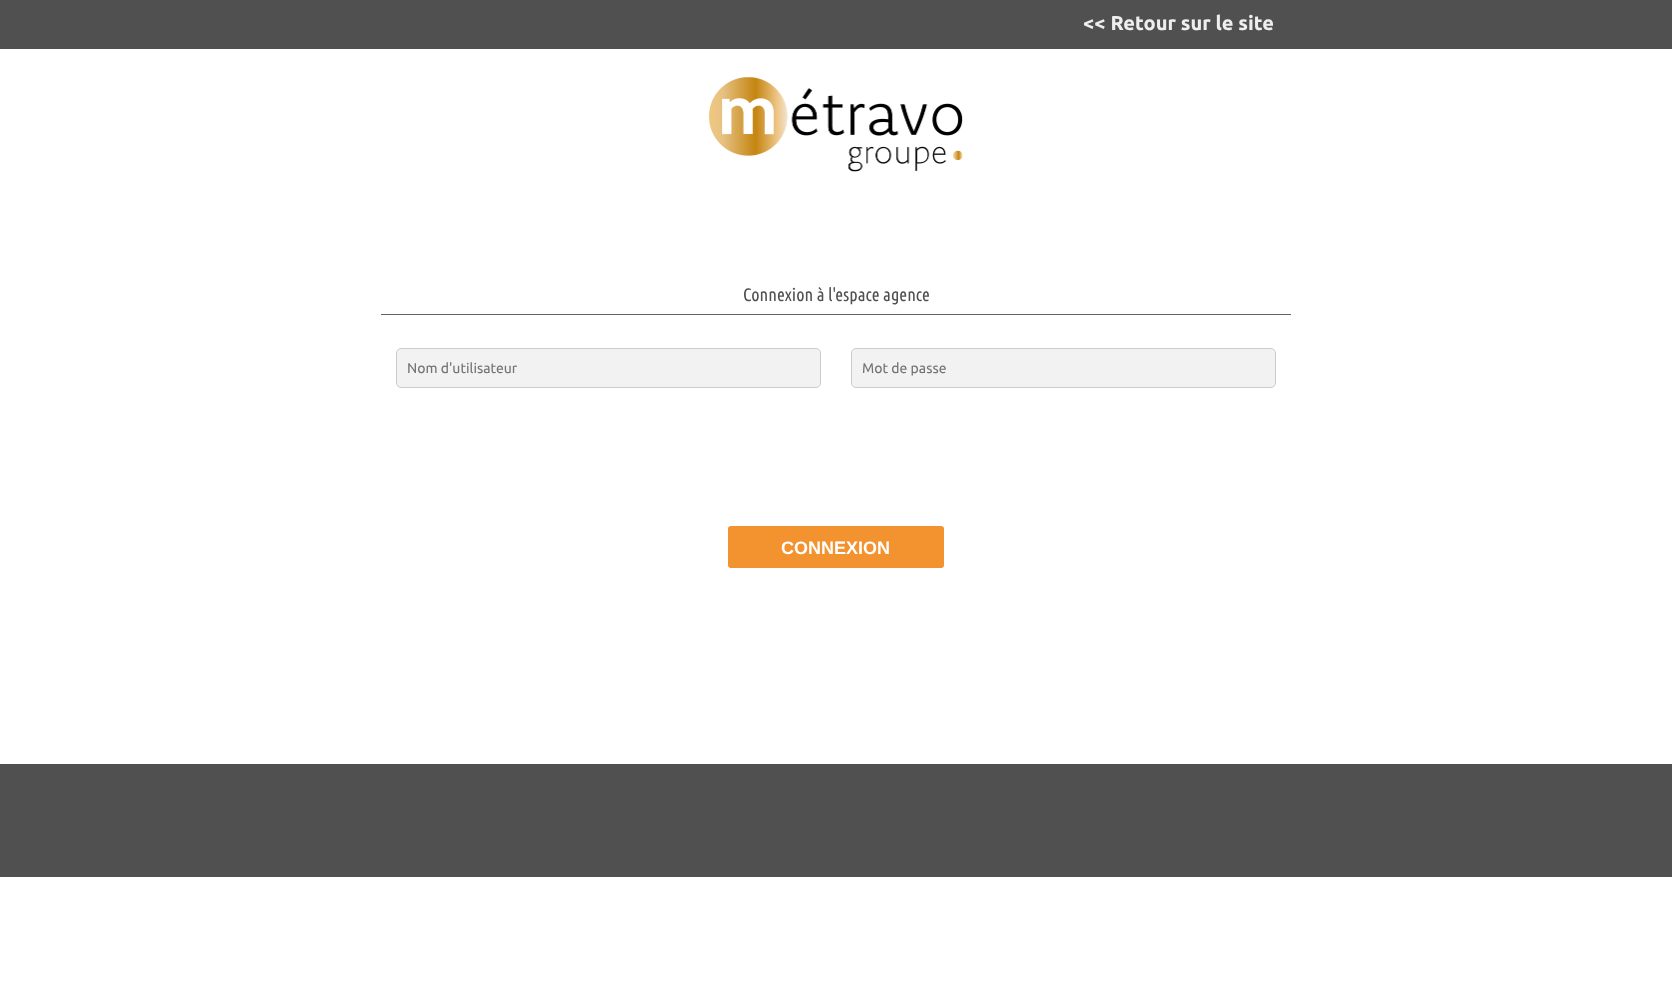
(async () => {
const canvas = document.querySelector("canvas")
canvas.width = 1672
canvas.height = 1008
const c = canvas.getContext("2d")
c.miterLimit = 4
c.fontKerning = "normal"
function T(s,x,y){c.fillText(s,x,y)}
function R(x,y,w,h){c.fillRect(x,y,w,h)}
async function I(src,x,y,w,h){const img=new Image();img.src=src;await img.decode();c.drawImage(img,x,y,w,h)}
c.fillStyle="#fff"
R(0,0,1672,1008)
c.fillStyle="#505050"
R(0,0,1672,49)
c.font="bold 20px Ubuntu"
c.fillStyle="#eee"
T("<< Retour sur le site",1083,30)
await I("1.png",709,77,254,95)
c.fillStyle="#636363"
R(381,314,910,1)
c.font="18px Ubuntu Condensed"
c.fillStyle="#505050"
T("Connexion à l'espace agence",743,301)
c.fillStyle="#f2f2f2"
c.beginPath()
c.roundRect(396.5,348.5,424,39,4.5)
c.fill()
c.strokeStyle="#ccc"
c.stroke()
c.font="14px Ubuntu"
c.fillStyle="#737373"
T("Nom d'utilisateur",407,373)
c.fillStyle="#f2f2f2"
c.beginPath()
c.roundRect(851.5,348.5,424,39,4.5)
c.fill()
c.stroke()
c.fillStyle="#737373"
T("Mot de passe",862,373)
c.fillStyle="#f39330"
c.beginPath()
c.roundRect(729,527,214,40,2)
c.fill()
c.strokeStyle="#f39330"
c.lineWidth=2
c.stroke()
c.font="bold 18px Liberation Sans"
c.fillStyle="#fff"
T("CONNEXION",781,554)
c.fillStyle="#505050"
R(0,764,1672,113)
})()
